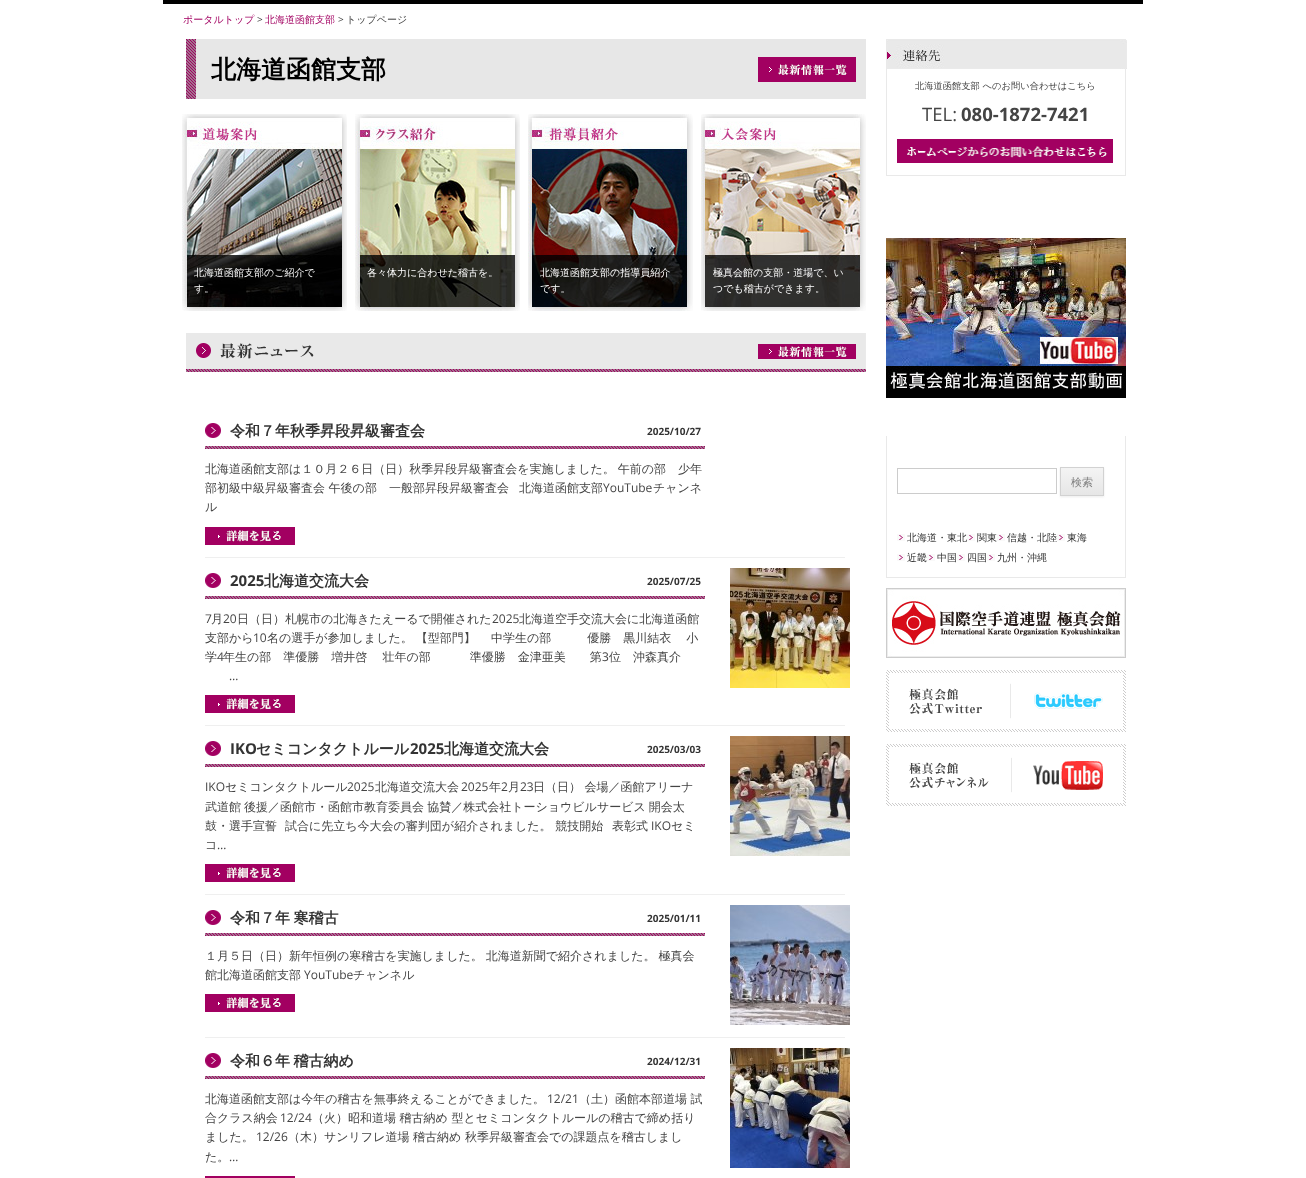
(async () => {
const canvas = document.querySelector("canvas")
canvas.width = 1306
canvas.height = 1178
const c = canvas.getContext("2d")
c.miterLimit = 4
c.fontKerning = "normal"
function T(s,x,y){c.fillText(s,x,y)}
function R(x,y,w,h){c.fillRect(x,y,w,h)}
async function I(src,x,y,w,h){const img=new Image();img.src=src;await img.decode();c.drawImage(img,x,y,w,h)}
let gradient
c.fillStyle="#fff"
R(0,0,1306,1178)
c.fillStyle="#000"
R(163,0,980,4)
c.font="500 10px WenQuanYi Zen Hei"
c.fillStyle="#a20061"
T("ポータルトップ",183,23)
c.font="10px Open Sans"
c.fillStyle="#444"
T(">",257,23)
c.font="500 10px WenQuanYi Zen Hei"
c.fillStyle="#a20061"
T("北海道函館支部",265,23)
c.font="10px Open Sans"
c.fillStyle="#444"
T(">",338,23)
c.font="500 10px WenQuanYi Zen Hei"
T("トップページ",346,23)
await I("1.png",186,39,680,60)
c.font="bold 25px WenQuanYi Zen Hei"
c.fillStyle="#000"
T("北海道函館支部",211,78)
await I("2.png",758,57,98,25)
await I("3.png",182,114,165,197)
c.font="500 10px WenQuanYi Zen Hei"
c.fillStyle="#fff"
T("北海道函館支部のご紹介で",194,276)
T("す。",194,292)
await I("4.png",355,114,165,197)
T("各々体力に合わせた稽古を。",367,276)
await I("5.png",528,114,165,197)
T("北海道函館支部の指導員紹介",540,276)
T("です。",540,292)
await I("6.png",701,114,165,197)
T("極真会館の支部・道場で、い",713,276)
T("つでも稽古ができます。",713,292)
await I("7.png",186,333,680,39)
await I("8.png",758,344,98,15)
c.fillStyle="#efefef"
R(205,557,640,1)
await I("9.png",205,446,500,3)
await I("10.png",205,423,16,15)
c.font="bold 15px WenQuanYi Zen Hei"
c.fillStyle="#333"
T("令和７年秋季昇段昇級審査会",230,436)
c.font="bold 10px Open Sans"
T("2025/10/27",647,435)
c.wordSpacing="-0.5px"
c.font="500 12px WenQuanYi Zen Hei"
c.fillStyle="#444"
T("北海道函館支部は１０月２６日（日）秋季昇段昇級審査会を実施しました。 午前の部　少年",205,473)
c.wordSpacing="0px"
T("部初級中級昇級審査会 午後の部　一般部昇段昇級審査会",205,492)
T("北海道函館支部",519,492)
c.font="12px Open Sans"
T("YouTube",603,492)
c.font="500 12px WenQuanYi Zen Hei"
T("チャンネ",653,492)
T("ル",205,511)
await I("11.png",205,527,90,18)
c.fillStyle="#efefef"
R(205,725,640,1)
await I("9.png",205,596,500,3)
await I("10.png",205,573,16,15)
c.font="bold 15px Open Sans"
c.fillStyle="#333"
T("2025",230,586)
c.font="bold 15px WenQuanYi Zen Hei"
T("北海道交流大会",264,586)
c.font="bold 10px Open Sans"
T("2025/07/25",647,585)
c.font="12px Open Sans"
c.fillStyle="#444"
T("7",205,623)
c.font="500 12px WenQuanYi Zen Hei"
T("月",211,623)
c.font="12px Open Sans"
T("20",223,623)
c.font="500 12px WenQuanYi Zen Hei"
T("日（日）札幌市の北海きたえーるで開催された",237,623)
c.font="12px Open Sans"
T("2025",492,623)
c.font="500 12px WenQuanYi Zen Hei"
T("北海道空手交流大会に北海道函館",519,623)
T("支部から",205,642)
c.font="12px Open Sans"
T("10",253,642)
c.wordSpacing="-0.5px"
c.font="500 12px WenQuanYi Zen Hei"
T("名の選手が参加しました。 【型部門】 　中学生の部　　　優勝　黒川結衣 　小",267,642)
c.wordSpacing="0px"
T("学",205,661)
c.font="12px Open Sans"
T("4",217,661)
c.wordSpacing="-0.5px"
c.font="500 12px WenQuanYi Zen Hei"
T("年生の部　準優勝　増井啓 　壮年の部　　　 準優勝　金津亜美　　第",223,661)
c.wordSpacing="0px"
c.font="12px Open Sans"
T("3",602,661)
c.font="500 12px WenQuanYi Zen Hei"
T("位　沖森真介",609,661)
c.font="12px Open Sans"
T("…",229,680)
await I("11.png",205,695,90,18)
await I("12.png",730,568,120,120)
c.fillStyle="#efefef"
R(205,894,640,1)
await I("9.png",205,764,500,3)
await I("10.png",205,741,16,15)
c.font="bold 15px Open Sans"
c.fillStyle="#333"
T("IKO",230,754)
c.font="bold 15px WenQuanYi Zen Hei"
T("セミコンタクトルール",256,754)
c.font="bold 15px Open Sans"
T("2025",410,754)
c.font="bold 15px WenQuanYi Zen Hei"
T("北海道交流大会",444,754)
c.font="bold 10px Open Sans"
T("2025/03/03",647,753)
c.font="12px Open Sans"
c.fillStyle="#444"
T("IKO",205,791)
c.font="500 12px WenQuanYi Zen Hei"
T("セミコンタクトルール",225,791)
c.font="12px Open Sans"
T("2025",347,791)
c.font="500 12px WenQuanYi Zen Hei"
T("北海道交流大会",375,791)
c.font="12px Open Sans"
T("2025",461,791)
c.font="500 12px WenQuanYi Zen Hei"
T("年",489,791)
c.font="12px Open Sans"
T("2",501,791)
c.font="500 12px WenQuanYi Zen Hei"
T("月",508,791)
c.font="12px Open Sans"
T("23",520,791)
c.font="500 12px WenQuanYi Zen Hei"
T("日（日） 会場／函館アリーナ",533,791)
c.wordSpacing="-0.5px"
T("武道館 後援／函館市・函館市教育委員会 協賛／株式会社トーショウビルサービス 開会太",205,811)
c.wordSpacing="0px"
T("鼓・選手宣誓",205,830)
T("試合に先立ち今大会の審判団が紹介されました。 競技開始",285,830)
T("表彰式",612,830)
c.font="12px Open Sans"
T("IKO",651,830)
c.font="500 12px WenQuanYi Zen Hei"
T("セミ",671,830)
T("コ",205,849)
c.font="12px Open Sans"
T("…",217,849)
await I("11.png",205,864,90,18)
await I("13.png",730,736,120,120)
c.fillStyle="#efefef"
R(205,1037,640,1)
await I("9.png",205,933,500,3)
await I("10.png",205,910,16,15)
c.wordSpacing="-1px"
c.font="bold 15px WenQuanYi Zen Hei"
c.fillStyle="#333"
T("令和７年 寒稽古",230,923)
c.wordSpacing="0px"
c.font="bold 10px Open Sans"
T("2025/01/11",647,922)
c.wordSpacing="-0.5px"
c.font="500 12px WenQuanYi Zen Hei"
c.fillStyle="#444"
T("１月５日（日）新年恒例の寒稽古を実施しました。 北海道新聞で紹介されました。 極真会",205,960)
c.wordSpacing="0px"
T("館北海道函館支部",205,979)
c.font="12px Open Sans"
T("YouTube",304,979)
c.font="500 12px WenQuanYi Zen Hei"
T("チャンネル",353,979)
await I("11.png",205,994,90,18)
await I("14.png",730,905,120,120)
await I("9.png",205,1076,500,3)
await I("10.png",205,1053,16,15)
c.wordSpacing="-1px"
c.font="bold 15px WenQuanYi Zen Hei"
c.fillStyle="#333"
T("令和６年 稽古納め",230,1066)
c.wordSpacing="0px"
c.font="bold 10px Open Sans"
T("2024/12/31",647,1065)
c.font="500 12px WenQuanYi Zen Hei"
c.fillStyle="#444"
T("北海道函館支部は今年の稽古を無事終えることができました。",205,1103)
c.font="12px Open Sans"
T("12/21",547,1103)
c.font="500 12px WenQuanYi Zen Hei"
T("（土）函館本部道場 試",579,1103)
T("合クラス納会",205,1122)
c.font="12px Open Sans"
T("12/24",280,1122)
c.font="500 12px WenQuanYi Zen Hei"
T("（火）昭和道場 稽古納め 型とセミコンタクトルールの稽古で締め括り",312,1122)
T("ました。",205,1141)
c.font="12px Open Sans"
T("12/26",256,1141)
c.font="500 12px WenQuanYi Zen Hei"
T("（木）サンリフレ道場 稽古納め 秋季昇級審査会での課題点を稽古しまし",288,1141)
T("た。",205,1161)
c.font="12px Open Sans"
T("…",229,1161)
c.fillStyle="#a20061"
R(205,1176,90,2)
await I("15.png",730,1048,120,120)
c.strokeStyle="#e9e9e9"
c.strokeRect(886.5,39.5,239,136)
await I("16.png",887,40,240,29)
c.font="500 9.25px WenQuanYi Zen Hei"
c.fillStyle="#444"
T("北海道函館支部 へのお問い合わせはこちら",915,89)
c.font="18.5px Open Sans"
T("TEL:",922,121)
c.font="bold 18.5px Open Sans"
T("080-1872-7421",961,121)
await I("17.png",897,139,216,24)
await I("18.png",886,238,240,160)
c.fillStyle="#e9e9e9"
R(1125,436,1,142)
R(886,577,240,1)
R(886,436,1,142)
c.strokeStyle="#ccc"
c.strokeRect(897.5,468.5,159,25)
c.fillStyle="#4040401a"
c.filter="blur(1px)"
c.beginPath()
c.rect(1060,468,44,29)
c.fill()
c.filter="none"
gradient = c.createLinearGradient(1082,468,1082,495)
gradient.addColorStop(0,"#f4f4f4")
gradient.addColorStop(1,"#e6e6e6")
c.fillStyle = gradient
R(1061,469,42,26)
c.strokeStyle="#d2d2d2"
c.strokeRect(1060.5,467.5,43,28)
c.font="500 11px WenQuanYi Zen Hei"
c.fillStyle="#7c7c7c"
T("検索",1071,486)
await I("19.png",897,534,8,7)
c.font="500 10px WenQuanYi Zen Hei"
c.fillStyle="#333"
T("北海道・東北",907,541)
await I("19.png",967,534,8,7)
T("関東",977,541)
await I("19.png",997,534,8,7)
T("信越・北陸",1007,541)
await I("19.png",1057,534,8,7)
T("東海",1067,541)
await I("19.png",897,554,8,7)
T("近畿",907,561)
await I("19.png",927,554,8,7)
T("中国",937,561)
await I("19.png",957,554,8,7)
T("四国",967,561)
await I("19.png",987,554,8,7)
T("九州・沖縄",997,561)
await I("20.png",886,588,240,70)
await I("21.png",886,670,240,62)
await I("22.png",886,744,240,62)
})()
